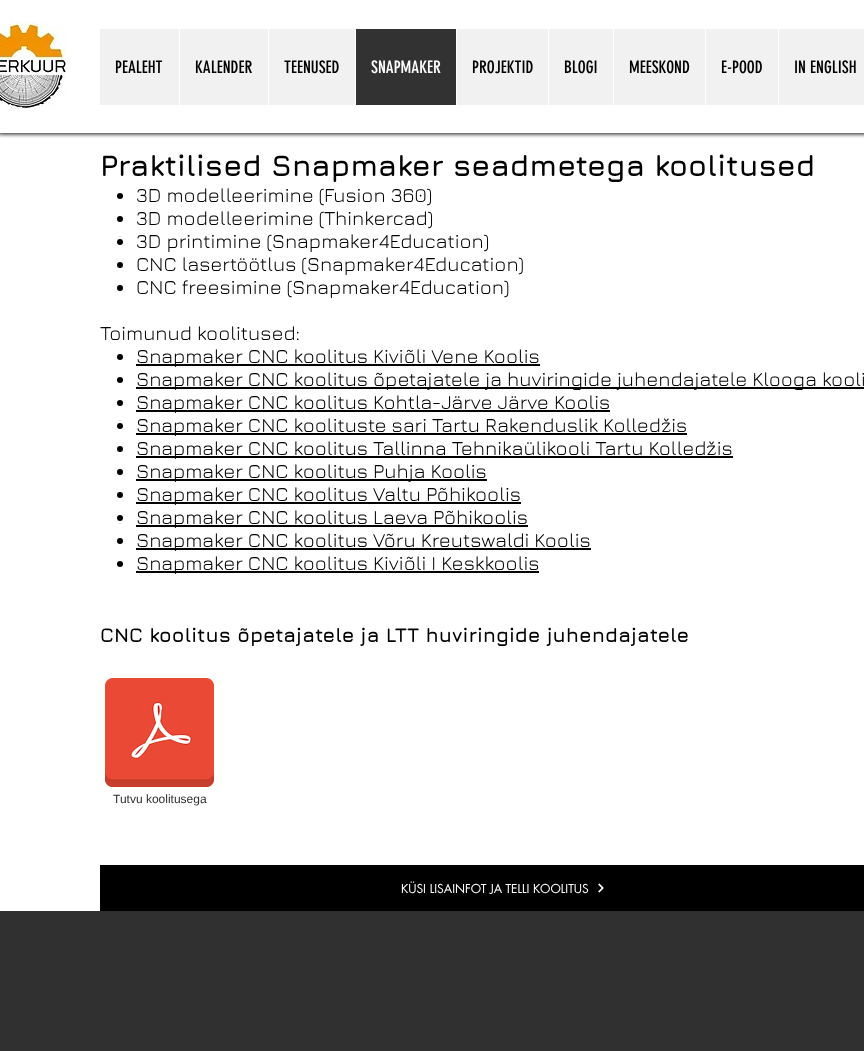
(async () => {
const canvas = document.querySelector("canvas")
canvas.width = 864
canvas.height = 1051
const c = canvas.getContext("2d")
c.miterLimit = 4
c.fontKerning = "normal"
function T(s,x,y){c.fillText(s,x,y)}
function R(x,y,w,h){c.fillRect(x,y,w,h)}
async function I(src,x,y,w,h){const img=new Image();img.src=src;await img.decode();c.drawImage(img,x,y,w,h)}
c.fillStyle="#303030"
R(0,0,864,1051)
c.fillStyle="#fff"
R(0,133,864,778)
c.fillStyle="#000000b3"
c.filter="blur(2.5px)"
c.beginPath()
c.rect(0,0,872,133)
c.fill()
c.filter="none"
c.fillStyle="#fff"
R(0,0,864,133)
c.save()
c.beginPath()
c.rect(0,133,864,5)
c.clip()
c.fillStyle="#00000099"
c.filter="blur(2px)"
c.beginPath()
c.roundRect(-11,1,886,133,5)
c.fill()
c.filter="none"
c.restore()
await I("1.png",0,21,66,88)
c.fillStyle="#f1f1f1"
R(100,29,764,76)
c.font="17px 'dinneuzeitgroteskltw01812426'"
c.fillStyle="#000"
T("PEALEHT",115,73)
c.fillStyle="#fff"
R(179,29,1,76)
c.fillStyle="#000"
T("KALENDER",195,73)
c.fillStyle="#fff"
R(268,29,1,76)
c.fillStyle="#000"
T("TEENUSED",284,73)
c.fillStyle="#323232"
R(356,29,100,76)
c.fillStyle="#fff"
R(355,29,1,76)
T("SNAPMAKER",371,73)
R(456,29,1,76)
c.fillStyle="#000"
T("PROJEKTID",472,73)
c.fillStyle="#fff"
R(548,29,1,76)
c.fillStyle="#000"
T("BLOGI",564,73)
c.fillStyle="#fff"
R(613,29,1,76)
c.fillStyle="#000"
T("MEESKOND",629,73)
c.fillStyle="#fff"
R(705,29,1,76)
c.fillStyle="#000"
T("E-POOD",721,73)
c.fillStyle="#fff"
R(778,29,1,76)
c.fillStyle="#000"
T("IN ENGLISH",794,73)
c.font="bold 30px Jura"
T("Praktilised Snapmaker seadmetega koolitused",100,176)
c.beginPath()
c.arc(120,196,3,0,7)
c.fill()
c.font="20px Jura"
T("3D modelleerimine (Fusion 360)",136,202)
c.beginPath()
c.arc(120,219,3,0,7)
c.fill()
T("3D modelleerimine (Thinkercad)",136,225)
c.beginPath()
c.arc(120,242,3,0,7)
c.fill()
T("3D printimine (Snapmaker4Education)",136,248)
c.beginPath()
c.arc(120,265,3,0,7)
c.fill()
T("CNC lasertöötlus (Snapmaker4Education)",136,271)
c.beginPath()
c.arc(120,288,3,0,7)
c.fill()
T("CNC freesimine (Snapmaker4Education)",136,294)
T("Toimunud koolitused:",100,340)
c.beginPath()
c.arc(120,357,3,0,7)
c.fill()
R(136,364,404,2)
T("Snapmaker CNC koolitus Kiviõli Vene Koolis",136,363)
c.beginPath()
c.arc(120,380,3,0,7)
c.fill()
R(136,387,728,2)
T("Snapmaker CNC koolitus õpetajatele ja huviringide juhendajatele Klooga kooli",136,386)
c.beginPath()
c.arc(120,403,3,0,7)
c.fill()
R(136,410,474,2)
T("Snapmaker CNC koolitus Kohtla-Järve Järve Koolis",136,409)
c.beginPath()
c.arc(120,426,3,0,7)
c.fill()
R(136,433,551,2)
T("Snapmaker CNC koolituste sari Tartu Rakenduslik Kolledžis",136,432)
c.beginPath()
c.arc(120,449,3,0,7)
c.fill()
R(136,456,597,2)
T("Snapmaker CNC koolitus Tallinna Tehnikaülikooli Tartu Kolledžis",136,455)
c.beginPath()
c.arc(120,472,3,0,7)
c.fill()
R(136,479,351,2)
T("Snapmaker CNC koolitus Puhja Koolis",136,478)
c.beginPath()
c.arc(120,495,3,0,7)
c.fill()
R(136,502,385,2)
T("Snapmaker CNC koolitus Valtu Põhikoolis",136,501)
c.beginPath()
c.arc(120,518,3,0,7)
c.fill()
R(136,525,392,2)
T("Snapmaker CNC koolitus Laeva Põhikoolis",136,524)
c.beginPath()
c.arc(120,541,3,0,7)
c.fill()
R(136,548,455,2)
T("Snapmaker CNC koolitus Võru Kreutswaldi Koolis",136,547)
c.beginPath()
c.arc(120,564,3,0,7)
c.fill()
R(136,571,403,2)
T("Snapmaker CNC koolitus Kiviõli I Keskkoolis",136,570)
c.font="bold 20px Jura"
T("CNC koolitus õpetajatele ja LTT huviringide juhendajatele",100,642)
await I("2.png",105,678,109,109)
c.font="12px Liberation Sans"
c.fillStyle="#303030"
T("Tutvu koolitusega",113,803)
c.fillStyle="#000"
R(100,865,764,46)
c.font="12px futura"
c.fillStyle="#fff"
T("KÜSI LISAINFOT JA TELLI KOOLITUS",401,893)
await I("3.png",598,883,6,10)
})()
